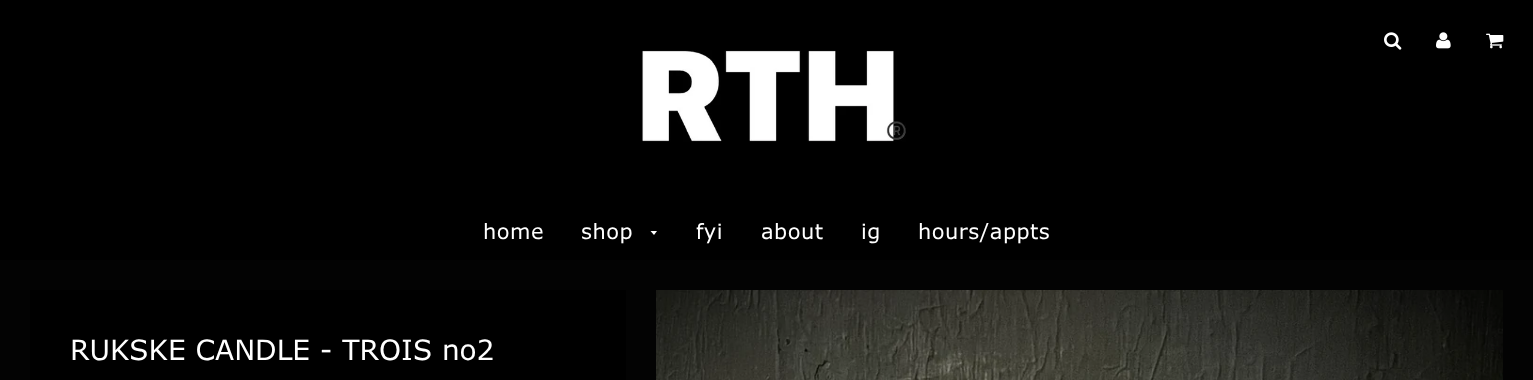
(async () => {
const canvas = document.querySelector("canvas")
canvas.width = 1533
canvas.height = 380
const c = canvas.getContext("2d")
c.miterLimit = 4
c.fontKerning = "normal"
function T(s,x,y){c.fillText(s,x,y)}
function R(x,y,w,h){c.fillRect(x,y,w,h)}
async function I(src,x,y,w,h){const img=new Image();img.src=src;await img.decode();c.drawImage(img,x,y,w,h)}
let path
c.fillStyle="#030303"
R(0,0,1533,380)
c.fillStyle="#000"
R(0,0,1533,260)
await I("1.png",1384,32,18,18)
await I("2.png",1436,32,15,17)
await I("3.png",1486,33,18,16)
await I("4.png",642,50,264,92)
c.letterSpacing="0.5px"
c.font="21px Verdana"
c.fillStyle="#fff"
T("home",483,239)
T("shop",581,239)
path = new Path2D("M650.5 231l3.5 4l3-4z")
c.fill(path)
T("fyi",696,239)
T("about",761,239)
T("ig",861,239)
T("hours/appts",918,239)
c.fillStyle="#000"
R(30,290,596,90)
c.letterSpacing="0px"
c.font="28px Verdana"
c.fillStyle="#fff"
T("RUKSKE CANDLE - TROIS no2",70,360)
await I("5.png",656,290,847,90)
})()
